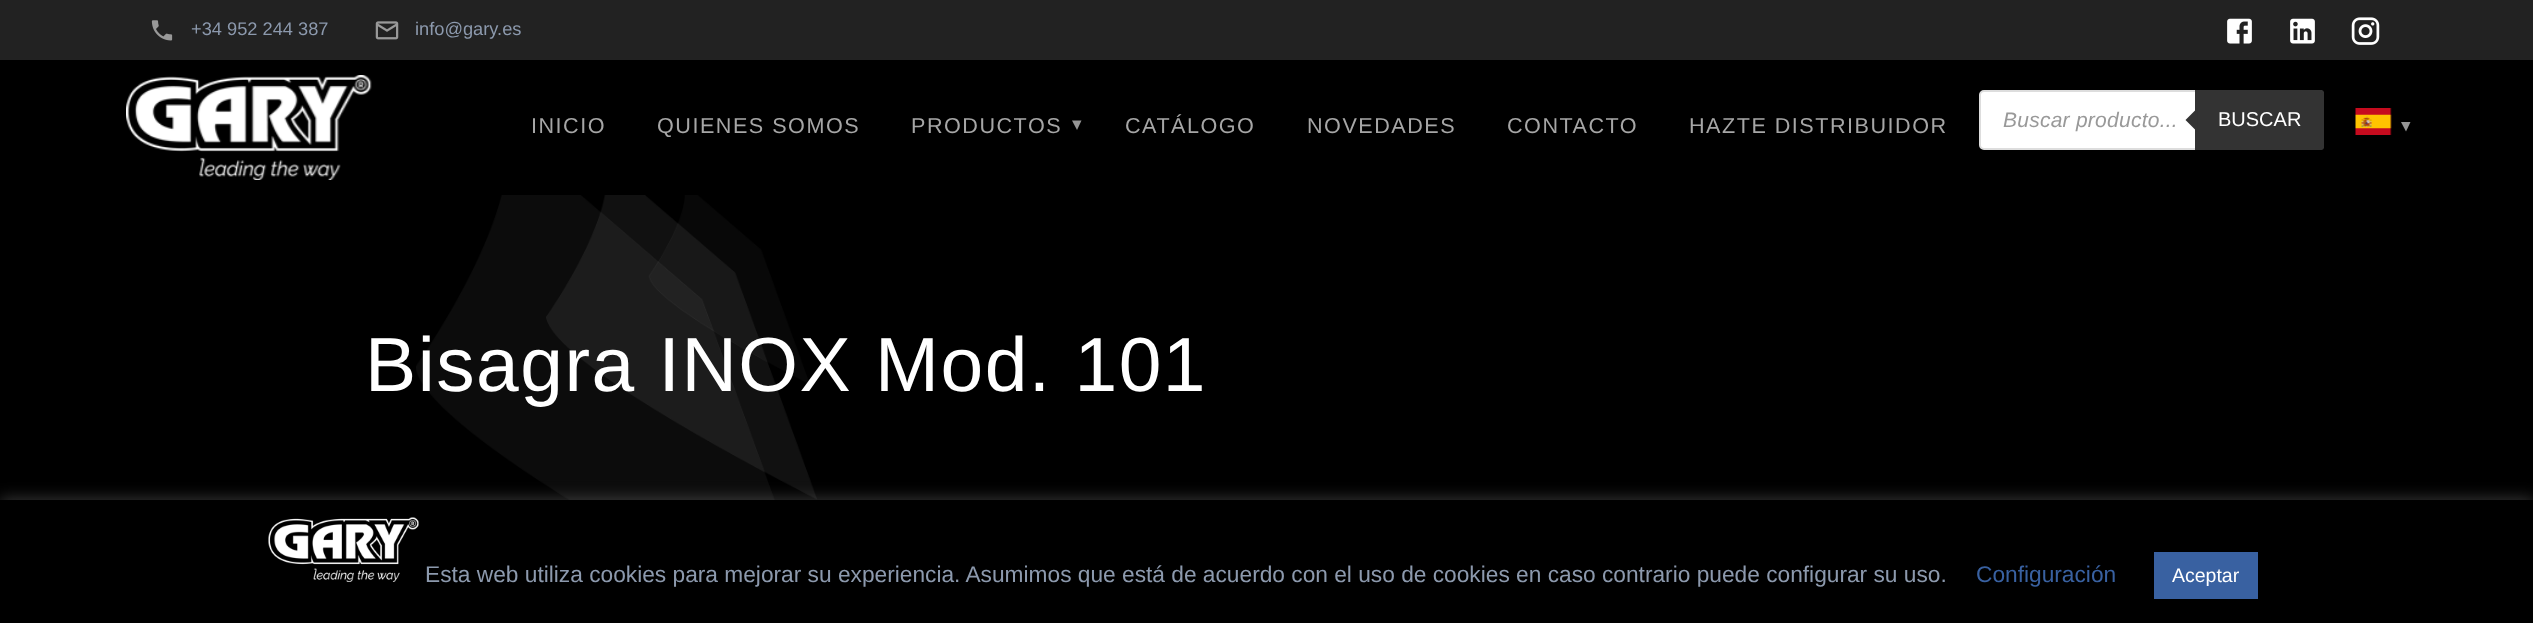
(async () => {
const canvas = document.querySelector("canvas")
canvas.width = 2533
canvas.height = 623
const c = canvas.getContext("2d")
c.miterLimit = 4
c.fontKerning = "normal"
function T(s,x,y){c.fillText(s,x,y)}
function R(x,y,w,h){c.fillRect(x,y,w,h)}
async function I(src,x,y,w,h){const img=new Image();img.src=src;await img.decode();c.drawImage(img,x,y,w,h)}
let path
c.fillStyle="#000"
R(0,0,2533,623)
c.fillStyle="#222"
R(0,0,2533,60)
await I("1.png",151,20,22,21)
c.font="18.25px Liberation Sans"
c.fillStyle="#8c99ad"
T("+34 952 244 387",191,35)
await I("2.png",375,21,24,19)
T("info@gary.es",415,35)
await I("3.png",2227,18,25,26)
await I("4.png",2290,18,25,26)
await I("5.png",2351,17,29,28)
await I("6.png",126,75,246,105)
c.letterSpacing="1.5px"
c.font="21.6px Liberation Sans"
c.fillStyle="#a6a6a6"
T("INICIO",531,133)
T("QUIENES SOMOS",657,133)
T("PRODUCTOS",911,133)
c.fillStyle="#969696"
path = new Path2D("M1072 120.5l5 9.5l4.5-9.5z")
c.fill(path)
c.fillStyle="#a6a6a6"
T("CATÁLOGO",1125,133)
T("NOVEDADES",1307,133)
T("CONTACTO",1507,133)
T("HAZTE DISTRIBUIDOR",1689,133)
c.fillStyle="#fff"
c.beginPath()
c.roundRect(1980,91,343,58,4)
c.fill()
c.strokeStyle="#ddd"
c.lineWidth=2
c.stroke()
c.letterSpacing="0.25px"
c.font="italic 21px Liberation Sans"
c.fillStyle="#999"
T("Buscar producto...",2003,127)
c.fillStyle="#333"
c.beginPath()
c.roundRect(2195,90,129,60,[0,3,3,0])
c.fill()
path = new Path2D("M2197.5 108v24l-12-12z")
c.fill(path)
c.letterSpacing="0px"
c.font="20px Liberation Sans"
c.fillStyle="#fff"
T("BUSCAR",2218,126)
await I("7.png",2355,108,37,27)
c.fillStyle="#969696"
path = new Path2D("M2401 122l5 9.5l4.5-9.5z")
c.fill(path)
await I("8.png",416,195,401,305)
c.letterSpacing="1.5px"
c.font="76.75px Liberation Sans"
c.fillStyle="#fff"
T("Bisagra INOX Mod. 101",365,391)
c.fillStyle="#acabab4d"
c.filter="blur(7.5px)"
c.beginPath()
c.rect(0,498,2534,125)
c.fill()
c.filter="none"
c.fillStyle="#000"
R(0,500,2533,123)
await I("9.png",268,517,151,65)
c.letterSpacing="0px"
c.font="22.73px Liberation Sans"
c.fillStyle="#8c99ad"
T("Esta web utiliza cookies para mejorar su experiencia. Asumimos que está de acuerdo con el uso de cookies en caso contrario puede configurar su uso.",425,582)
c.fillStyle="#3961a1"
T("Configuración",1976,582)
R(2154,552,104,47)
c.font="19.5px Liberation Sans"
c.fillStyle="#fff"
T("Aceptar",2172,582)
})()
